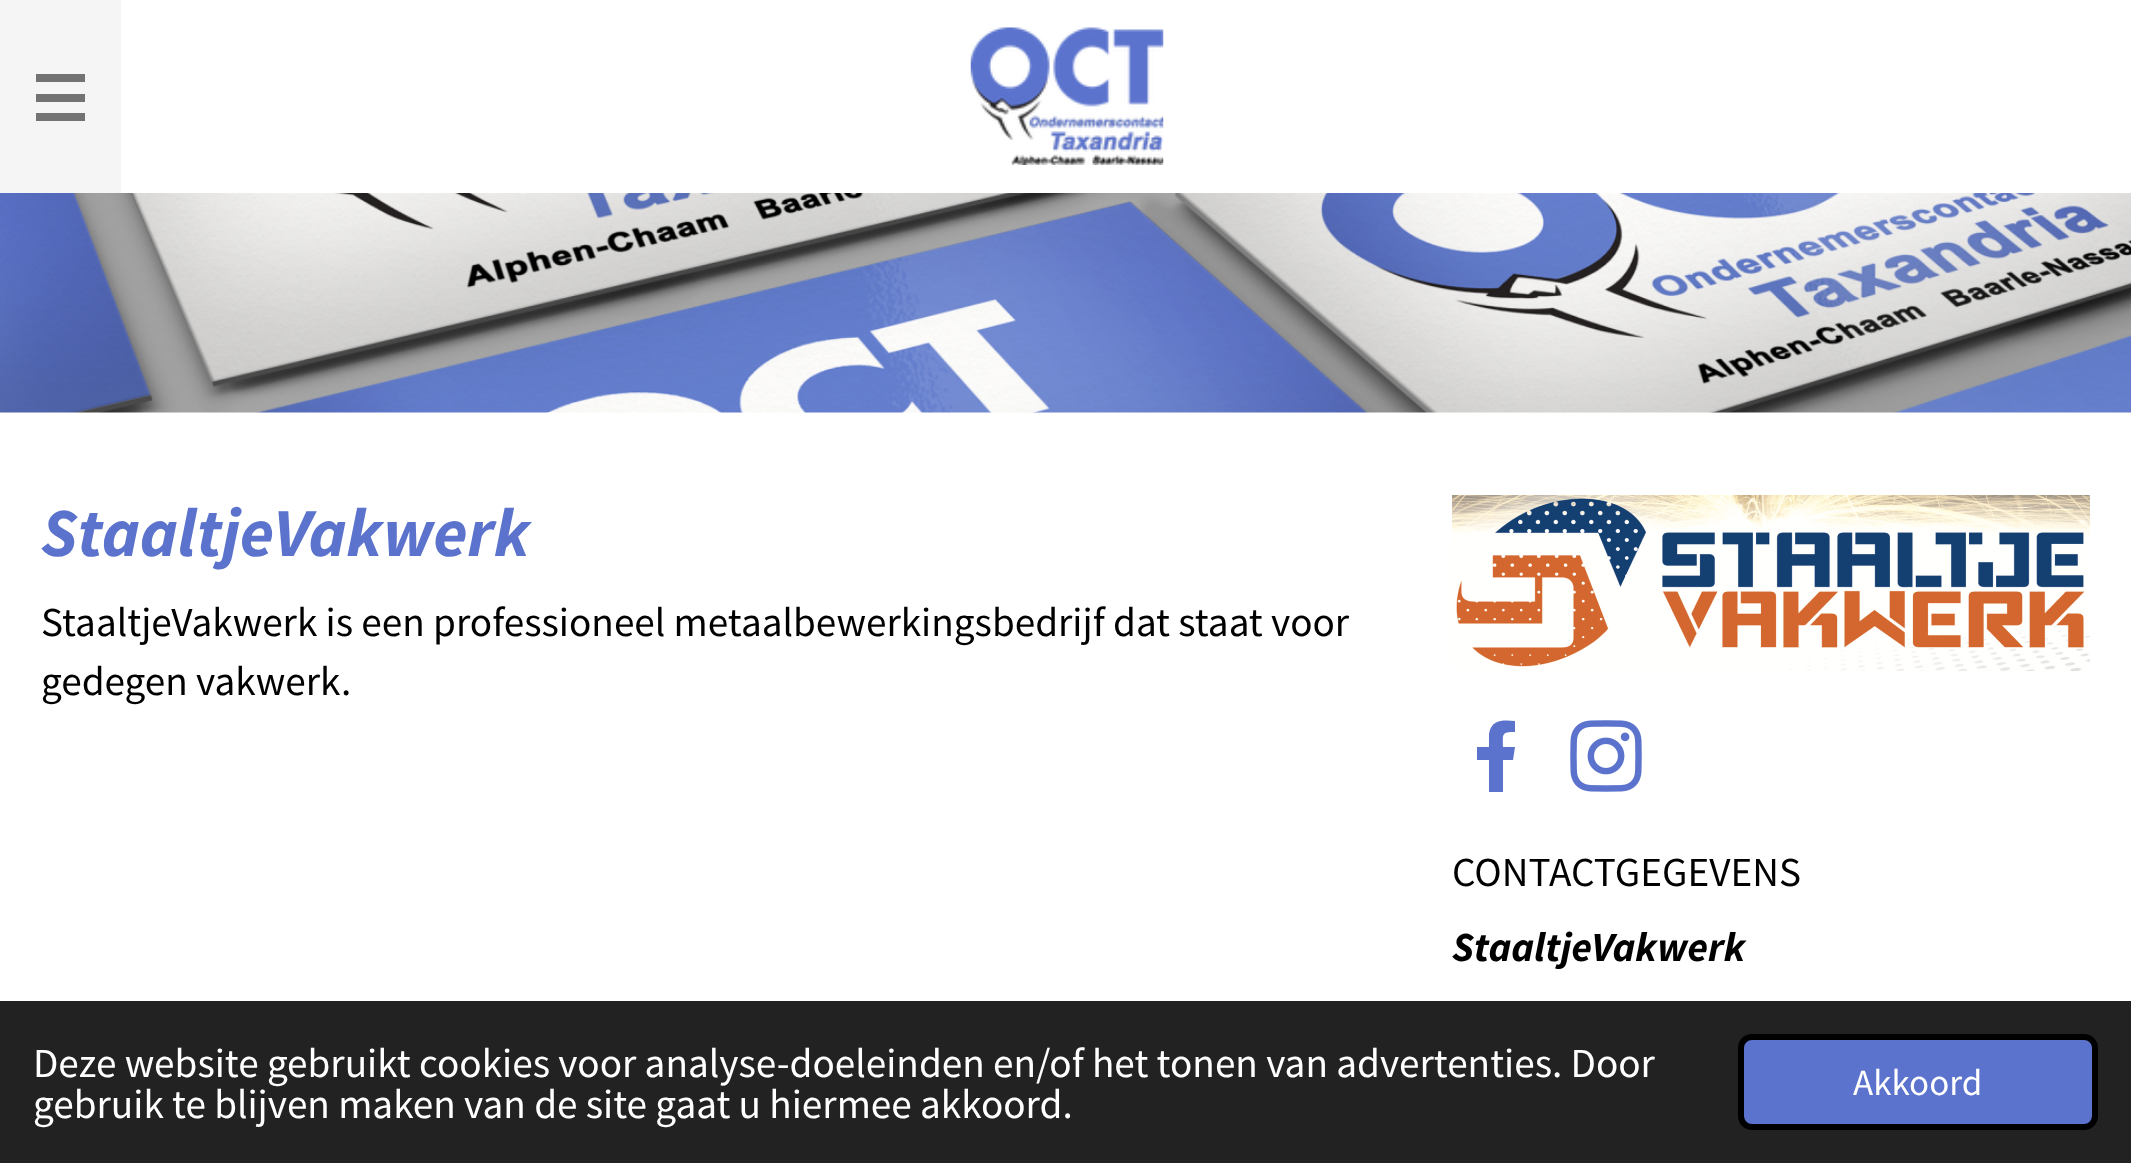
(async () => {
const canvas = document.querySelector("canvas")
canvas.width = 2131
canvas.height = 1163
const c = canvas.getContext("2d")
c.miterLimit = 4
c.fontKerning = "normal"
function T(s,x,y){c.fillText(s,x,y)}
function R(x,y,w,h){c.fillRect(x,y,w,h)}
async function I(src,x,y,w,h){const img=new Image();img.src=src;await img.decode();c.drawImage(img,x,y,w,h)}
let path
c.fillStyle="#fff"
R(0,0,2131,1163)
c.fillStyle="#f5f5f5"
R(0,0,121,193)
c.fillStyle="#737373"
R(36,94,49,8)
R(36,74,49,8)
R(36,113,49,8)
await I("1.png",970,27,194,138)
await I("2.png",0,193,2131,220)
c.font="italic bold 68.75px Source Sans Pro"
c.fillStyle="#5b73cd"
T("StaaltjeVakwerk",41,556)
c.font="41.25px Source Sans Pro"
c.fillStyle="#000"
T("StaaltjeVakwerk is een professioneel metaalbewerkingsbedrijf dat staat voor",41,636)
T("gedegen vakwerk.",41,695)
await I("3.png",1452,495,638,176)
c.fillStyle="#5b73cd"
path = new Path2D("M1513 760l2-13h-12c0-13-2-15 12-15v-11c-11-1-24-2-26 13v13h-12v13h12v32h14v-32z")
c.fill(path)
await I("4.png",1570,720,72,72)
c.fillStyle="#000"
T("CONTACTGEGEVENS",1452,886)
c.font="italic bold 41.25px Source Sans Pro"
T("StaaltjeVakwerk",1452,961)
c.fillStyle="#222"
R(0,1001,2131,162)
c.font="41.25px Source Sans Pro"
c.fillStyle="#fff"
T("Deze website gebruikt cookies voor analyse-doeleinden en/of het tonen van advertenties. Door",33,1077)
T("gebruik te blijven maken van de site gaat u hiermee akkoord.",33,1118)
c.fillStyle="#5b73cd"
c.beginPath()
c.roundRect(1741,1037,354,90,11)
c.fill()
c.strokeStyle="#000"
c.lineWidth=6
c.stroke()
c.font="37px Source Sans Pro"
c.fillStyle="#fff"
T("Akkoord",1853,1095)
})()
